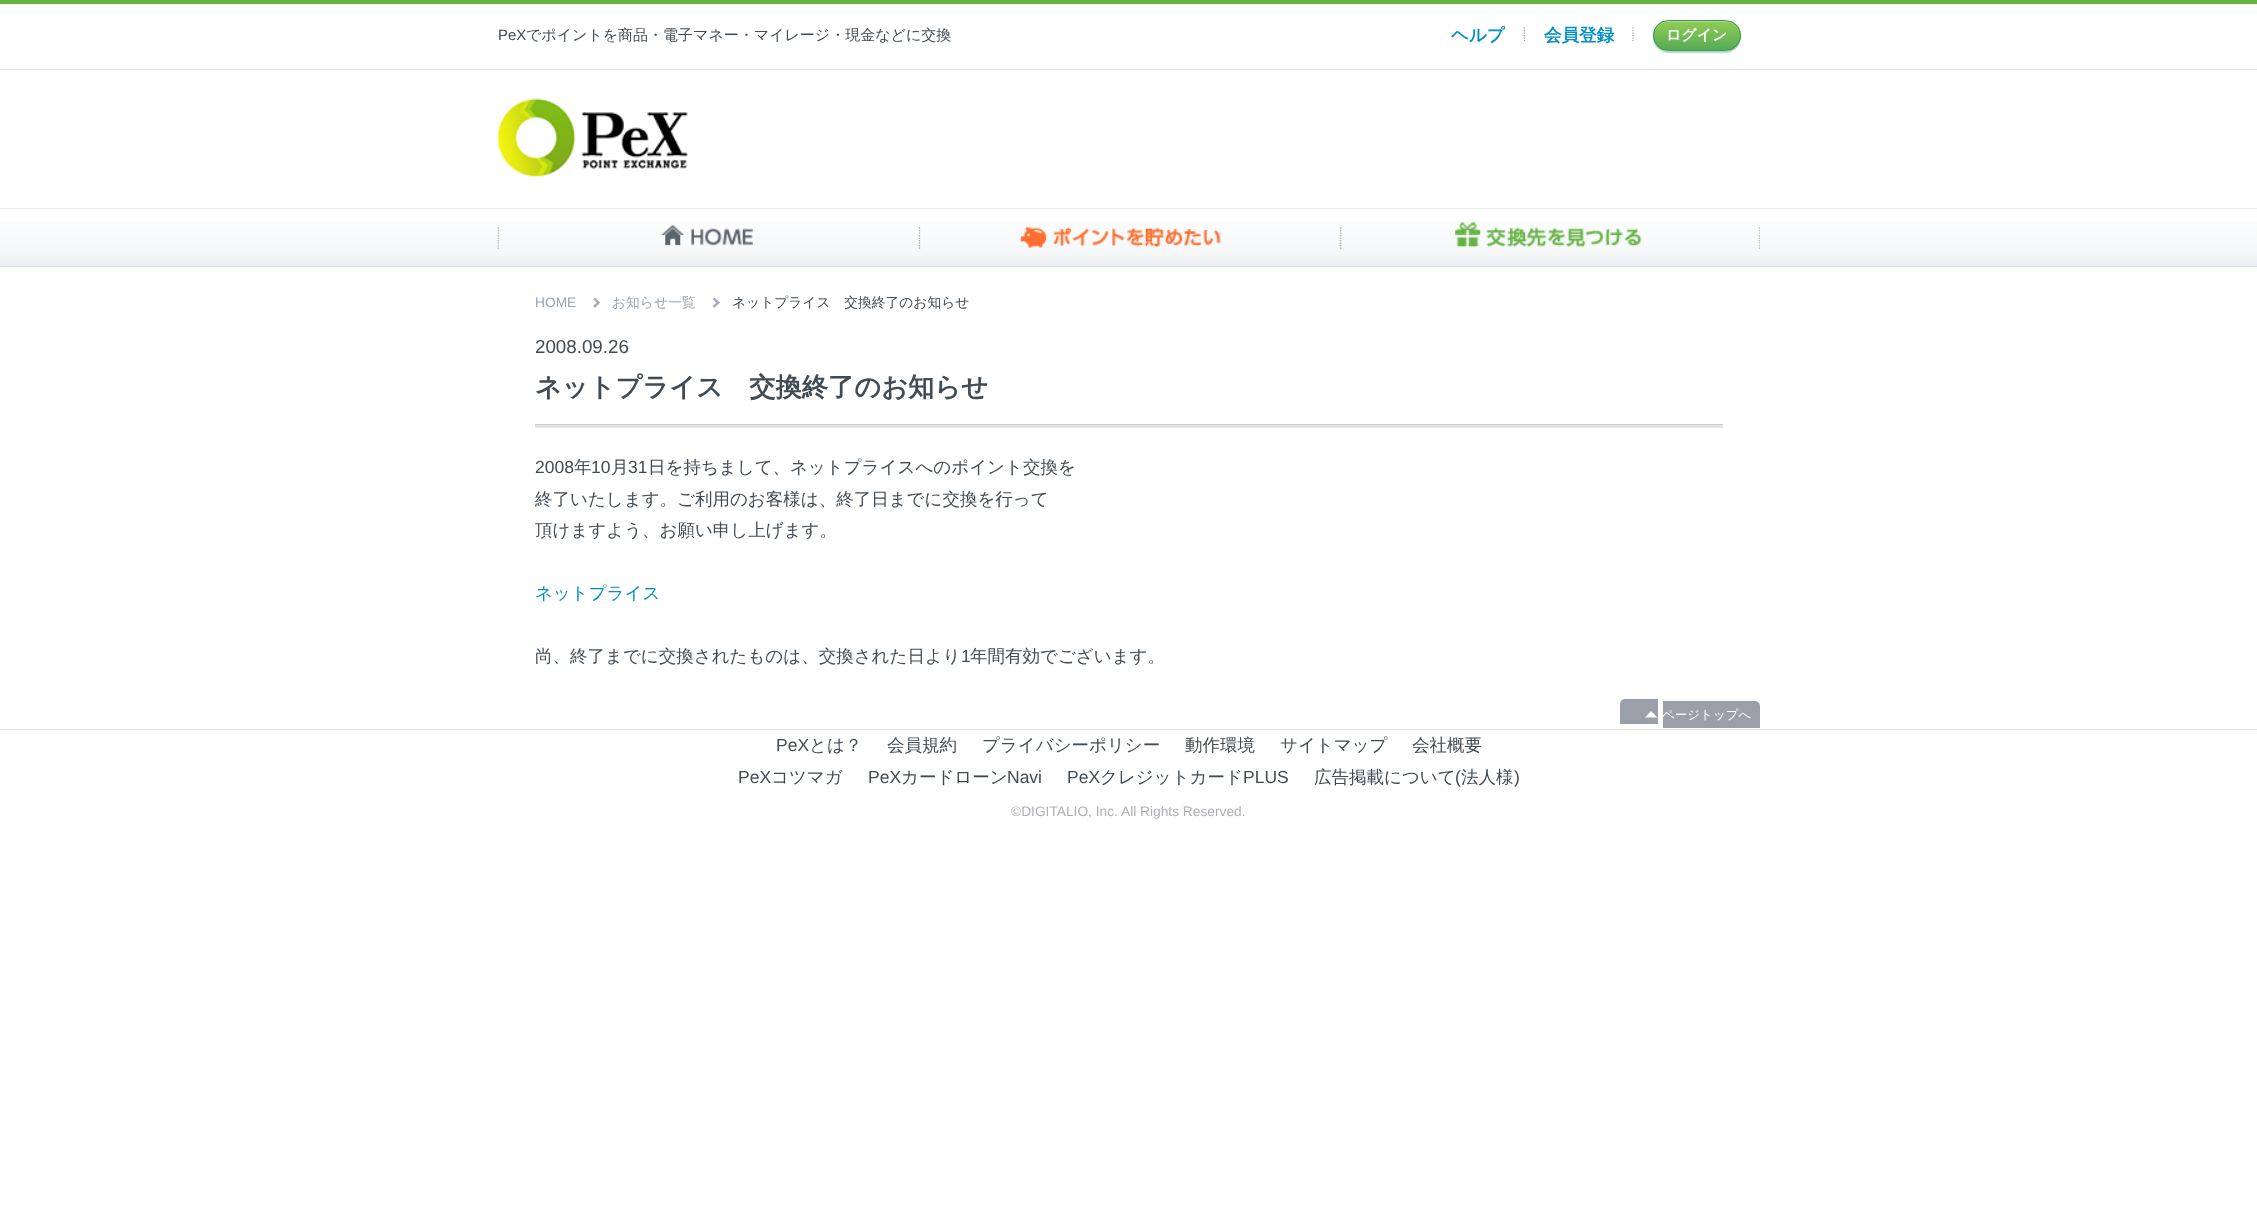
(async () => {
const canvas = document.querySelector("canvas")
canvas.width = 2257
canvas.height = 1216
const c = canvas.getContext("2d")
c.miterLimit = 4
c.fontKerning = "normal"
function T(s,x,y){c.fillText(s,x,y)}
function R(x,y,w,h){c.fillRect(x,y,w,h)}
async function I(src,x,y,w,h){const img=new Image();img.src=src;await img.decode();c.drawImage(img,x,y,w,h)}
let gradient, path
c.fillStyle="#fff"
R(0,0,2257,1216)
c.fillStyle="#64b343"
R(0,0,2257,4)
c.fillStyle="#e2e3e9"
R(0,69,2257,1)
c.font="15px Liberation Sans"
c.fillStyle="#414b54"
T("PeX",498,40)
c.font="500 15px WenQuanYi Zen Hei"
T("でポイントを商品・電子マネー・マイレージ・現金などに交換",526,40)
c.font="bold 17.5px WenQuanYi Zen Hei"
c.fillStyle="#018fc5"
T("ヘルプ",1451,41)
path = new Path2D("M1524.5 27.5v13.5")
c.strokeStyle="#9da1a2"
c.lineWidth=1.2
c.setLineDash([1.25,1.25])
c.stroke(path)
T("会員登録",1544,41)
path = new Path2D("M1633 27.5v13.5")
c.stroke(path)
c.fillStyle="#43a46966"
c.filter="blur(0.5px)"
c.beginPath()
c.roundRect(1653,21,88,32,16)
c.fill()
c.filter="none"
c.save()
c.beginPath()
c.roundRect(1653,20,88,31,15.5)
c.clip()
gradient = c.createLinearGradient(1697,21,1697,50)
gradient.addColorStop(0,"#92cc54")
gradient.addColorStop(1,"#55ac55")
c.fillStyle = gradient
R(1653,21,88,29)
c.restore()
c.fillStyle="#ffffff4d"
path = new Path2D("M1668 22h58c8 0 14 7 14 14c0-7-5-13-12-15h-62c-7 2-12 8-12 15c0-7 6-14 14-14z")
c.fill(path)
c.beginPath()
c.roundRect(1653.5,20.5,87,30,15)
c.strokeStyle="#3a9760"
c.lineWidth=1
c.setLineDash([])
c.stroke()
c.font="bold 15px WenQuanYi Zen Hei"
c.fillStyle="#fff"
T("ログイン",1666,40)
await I("1.png",497,98,191,79)
gradient = c.createLinearGradient(1129,209,1129,266)
gradient.addColorStop(0,"#fff")
gradient.addColorStop(.5,"#f9fafb")
gradient.addColorStop(.8,"#f5f7f9")
gradient.addColorStop(1,"#eaedf2")
c.fillStyle = gradient
R(0,221,2257,45)
c.fillStyle="#e8ecf1"
R(0,208,2257,1)
c.fillStyle="#d8dee5"
R(0,266,2257,1)
await I("2.png",497,224,256,25)
await I("3.png",918,226,303,23)
await I("4.png",1339,222,421,27)
c.font="13.75px Liberation Sans"
c.fillStyle="#98a4af"
T("HOME",535,307)
c.fillStyle="#acafb9"
path = new Path2D("M595 297.5l5 5l-1.5 2l-5.5-5.5z")
c.fill(path)
path = new Path2D("M598.5 301l1.5 1.5l-5 5.5l-2-2z")
c.fill(path)
c.font="500 13.75px WenQuanYi Zen Hei"
c.fillStyle="#98a4af"
T("お知らせ一覧",612,307)
c.fillStyle="#acafb9"
path = new Path2D("M714.5 297.5l5.5 5l-2 2l-5.5-5.5z")
c.fill(path)
path = new Path2D("M718 301l2 1.5l-5.5 5.5l-2-2z")
c.fill(path)
c.fillStyle="#414b54"
T("ネットプライス　交換終了のお知らせ",732,307)
c.font="18.75px Liberation Sans"
T("2008.09.26",535,353)
c.font="bold 26.25px WenQuanYi Zen Hei"
T("ネットプライス　交換終了のお知らせ",535,396)
c.fillStyle="#ccc"
R(535,424,1188,1)
c.fillStyle="#e3e3e3"
R(535,425,1188,3)
c.font="17.5px Liberation Sans"
c.fillStyle="#414b54"
T("2008",535,473)
c.font="500 17.5px WenQuanYi Zen Hei"
T("年",574,473)
c.font="17.5px Liberation Sans"
T("10",591,473)
c.font="500 17.5px WenQuanYi Zen Hei"
T("月",611,473)
c.font="17.5px Liberation Sans"
T("31",628,473)
c.font="500 17.5px WenQuanYi Zen Hei"
T("日を持ちまして、ネットプライスへのポイント交換を",648,473)
T("終了いたします。ご利用のお客様は、終了日までに交換を行って",535,505)
T("頂けますよう、お願い申し上げます。",535,536)
c.fillStyle="#018fc5"
T("ネットプライス",535,599)
c.fillStyle="#414b54"
T("尚、終了までに交換されたものは、交換された日より",535,662)
c.font="17.5px Liberation Sans"
T("1",961,662)
c.font="500 17.5px WenQuanYi Zen Hei"
T("年間有効でございます。",970,662)
c.fillStyle="#9aa0a9"
c.beginPath()
c.roundRect(1620,699,38,25,[5,0,0,0])
c.fill()
c.beginPath()
c.roundRect(1663,701,97,27,[0,5,0,0])
c.fill()
c.fillStyle="#fff"
path = new Path2D("M1657.5 717.5h-12.5l6-6.5z")
c.fill(path)
c.font="500 12.5px WenQuanYi Zen Hei"
T("ページトップへ",1662,719)
c.fillStyle="#e3e3e3"
R(0,729,2257,1)
c.font="17.5px Liberation Sans"
c.fillStyle="#414b54"
T("PeX",776,751)
c.font="500 17.5px WenQuanYi Zen Hei"
T("とは？",809,751)
T("会員規約",887,751)
T("プライバシーポリシー",982,751)
T("動作環境",1185,751)
T("サイトマップ",1280,751)
T("会社概要",1412,751)
c.font="17.5px Liberation Sans"
T("PeX",738,783)
c.font="500 17.5px WenQuanYi Zen Hei"
T("コツマガ",771,783)
c.font="17.5px Liberation Sans"
T("PeX",868,783)
c.font="500 17.5px WenQuanYi Zen Hei"
T("カードローン",901,783)
c.font="17.5px Liberation Sans"
T("Navi",1007,783)
T("PeX",1067,783)
c.font="500 17.5px WenQuanYi Zen Hei"
T("クレジットカード",1100,783)
c.font="17.5px Liberation Sans"
T("PLUS",1243,783)
c.font="500 17.5px WenQuanYi Zen Hei"
T("広告掲載について",1314,783)
c.font="17.5px Liberation Sans"
T("(",1455,783)
c.font="500 17.5px WenQuanYi Zen Hei"
T("法人様",1461,783)
c.font="17.5px Liberation Sans"
T(")",1514,783)
c.font="13.75px Liberation Sans"
c.fillStyle="#aeb0b7"
T("©DIGITALIO, Inc. All Rights Reserved.",1011,816)
})()
